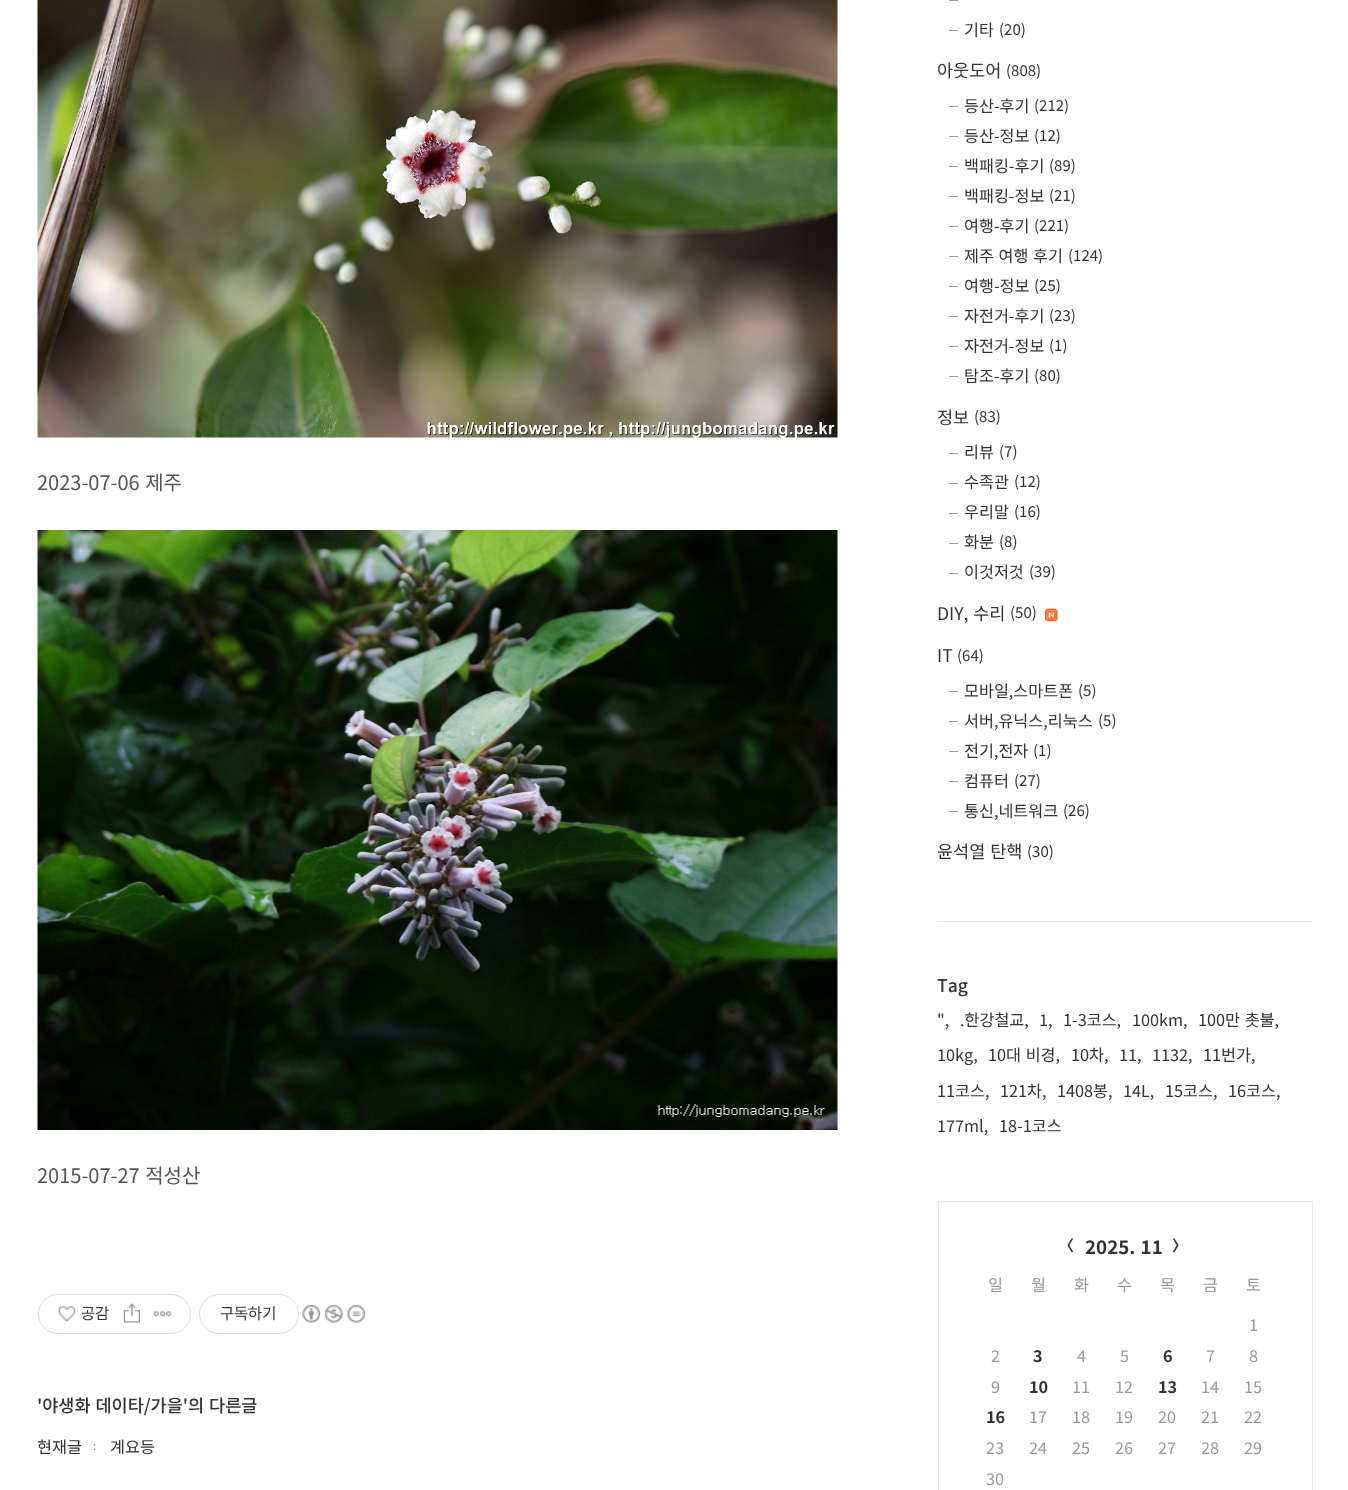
(async () => {
const canvas = document.querySelector("canvas")
canvas.width = 1348
canvas.height = 1490
const c = canvas.getContext("2d")
c.miterLimit = 4
c.fontKerning = "none"
function T(s,x,y){c.fillText(s,x,y)}
function R(x,y,w,h){c.fillRect(x,y,w,h)}
async function I(src,x,y,w,h){const img=new Image();img.src=src;await img.decode();c.drawImage(img,x,y,w,h)}
c.fillStyle="#fff"
R(0,0,1348,1490)
await I("1.png",37,0,801,438)
c.wordSpacing="1px"
c.font="20px Noto Sans KR"
c.fillStyle="#555"
T("2023-07-06 제주",37,490)
await I("2.png",37,530,801,600)
T("2015-07-27 적성산",37,1183)
c.beginPath()
c.roundRect(38.5,1294.5,152,39,19.5)
c.strokeStyle="#dcdcdc"
c.stroke()
await I("3.png",57,1306,20,16)
c.wordSpacing="0px"
c.font="16.25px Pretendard"
c.fillStyle="#333"
T("공감",81,1319)
await I("4.png",123,1303,17,20)
await I("5.png",153,1311,19,6)
c.beginPath()
c.roundRect(199.5,1294.5,99,39,19.5)
c.stroke()
T("구독하기",220,1319)
await I("6.png",302,1304,19,19)
await I("7.png",324,1304,19,19)
await I("8.png",347,1304,19,19)
c.wordSpacing="1px"
c.font="500 17.5px Noto Sans KR"
T("'야생화 데이타/가을'의 다른글",37,1412)
c.wordSpacing="0px"
c.font="16.25px Noto Sans KR"
T("현재글",37,1453)
c.font="11px Noto Sans KR"
c.fillStyle="#707070"
T(":",93,1450)
c.font="16.25px Noto Sans KR"
c.fillStyle="#333"
T("계요등",110,1453)
c.fillStyle="#e8e8e8"
R(938,921,375,1)
c.fillStyle="#999"
R(949,0,9,1)
R(949,30,9,1)
c.fillStyle="#333"
T("기타",964,36)
c.font="15px Noto Sans KR"
T("(20)",999,35)
c.font="17.5px Noto Sans KR"
T("아웃도어",937,77)
c.font="15px Noto Sans KR"
T("(808)",1006,76)
c.fillStyle="#999"
R(949,106,9,1)
c.font="16.25px Noto Sans KR"
c.fillStyle="#333"
T("등산-후기",964,112)
c.font="15px Noto Sans KR"
T("(212)",1034,111)
c.fillStyle="#999"
R(949,136,9,1)
c.font="16.25px Noto Sans KR"
c.fillStyle="#333"
T("등산-정보",964,142)
c.font="15px Noto Sans KR"
T("(12)",1034,141)
c.fillStyle="#999"
R(949,166,9,1)
c.font="16.25px Noto Sans KR"
c.fillStyle="#333"
T("백패킹-후기",964,172)
c.font="15px Noto Sans KR"
T("(89)",1049,171)
c.fillStyle="#999"
R(949,196,9,1)
c.font="16.25px Noto Sans KR"
c.fillStyle="#333"
T("백패킹-정보",964,202)
c.font="15px Noto Sans KR"
T("(21)",1049,201)
c.fillStyle="#999"
R(949,226,9,1)
c.font="16.25px Noto Sans KR"
c.fillStyle="#333"
T("여행-후기",964,232)
c.font="15px Noto Sans KR"
T("(221)",1034,231)
c.fillStyle="#999"
R(949,256,9,1)
c.wordSpacing="1px"
c.font="16.25px Noto Sans KR"
c.fillStyle="#333"
T("제주 여행 후기",964,262)
c.wordSpacing="0px"
c.font="15px Noto Sans KR"
T("(124)",1068,261)
c.fillStyle="#999"
R(949,286,9,1)
c.font="16.25px Noto Sans KR"
c.fillStyle="#333"
T("여행-정보",964,292)
c.font="15px Noto Sans KR"
T("(25)",1034,291)
c.fillStyle="#999"
R(949,316,9,1)
c.font="16.25px Noto Sans KR"
c.fillStyle="#333"
T("자전거-후기",964,322)
c.font="15px Noto Sans KR"
T("(23)",1049,321)
c.fillStyle="#999"
R(949,346,9,1)
c.font="16.25px Noto Sans KR"
c.fillStyle="#333"
T("자전거-정보",964,352)
c.font="15px Noto Sans KR"
T("(1)",1049,351)
c.fillStyle="#999"
R(949,376,9,1)
c.font="16.25px Noto Sans KR"
c.fillStyle="#333"
T("탐조-후기",964,382)
c.font="15px Noto Sans KR"
T("(80)",1034,381)
c.font="17.5px Noto Sans KR"
T("정보",937,424)
c.font="15px Noto Sans KR"
T("(83)",974,422)
c.fillStyle="#999"
R(949,453,9,1)
c.font="16.25px Noto Sans KR"
c.fillStyle="#333"
T("리뷰",964,458)
c.font="15px Noto Sans KR"
T("(7)",999,457)
c.fillStyle="#999"
R(949,483,9,1)
c.font="16.25px Noto Sans KR"
c.fillStyle="#333"
T("수족관",964,488)
c.font="15px Noto Sans KR"
T("(12)",1014,487)
c.fillStyle="#999"
R(949,513,9,1)
c.font="16.25px Noto Sans KR"
c.fillStyle="#333"
T("우리말",964,518)
c.font="15px Noto Sans KR"
T("(16)",1014,517)
c.fillStyle="#999"
R(949,543,9,1)
c.font="16.25px Noto Sans KR"
c.fillStyle="#333"
T("화분",964,548)
c.font="15px Noto Sans KR"
T("(8)",999,547)
c.fillStyle="#999"
R(949,573,9,1)
c.font="16.25px Noto Sans KR"
c.fillStyle="#333"
T("이것저것",964,578)
c.font="15px Noto Sans KR"
T("(39)",1029,577)
c.wordSpacing="1px"
c.font="17.5px Noto Sans KR"
T("DIY, 수리",937,620)
c.wordSpacing="0px"
c.font="15px Noto Sans KR"
T("(50)",1010,618)
await I("9.png",1045,608,13,14)
c.font="17.5px Noto Sans KR"
T("IT",937,662)
c.font="15px Noto Sans KR"
T("(64)",957,661)
c.fillStyle="#999"
R(949,691,9,1)
c.font="16.25px Noto Sans KR"
c.fillStyle="#333"
T("모바일,스마트폰",964,697)
c.font="15px Noto Sans KR"
T("(5)",1078,696)
c.fillStyle="#999"
R(949,721,9,1)
c.font="16.25px Noto Sans KR"
c.fillStyle="#333"
T("서버,유닉스,리눅스",964,727)
c.font="15px Noto Sans KR"
T("(5)",1098,726)
c.fillStyle="#999"
R(949,751,9,1)
c.font="16.25px Noto Sans KR"
c.fillStyle="#333"
T("전기,전자",964,757)
c.font="15px Noto Sans KR"
T("(1)",1033,756)
c.fillStyle="#999"
R(949,781,9,1)
c.font="16.25px Noto Sans KR"
c.fillStyle="#333"
T("컴퓨터",964,787)
c.font="15px Noto Sans KR"
T("(27)",1014,786)
c.fillStyle="#999"
R(949,811,9,1)
c.font="16.25px Noto Sans KR"
c.fillStyle="#333"
T("통신,네트워크",964,817)
c.font="15px Noto Sans KR"
T("(26)",1063,816)
c.wordSpacing="1px"
c.font="17.5px Noto Sans KR"
T("윤석열 탄핵",937,858)
c.wordSpacing="0px"
c.font="15px Noto Sans KR"
T("(30)",1027,857)
c.font="500 17.5px Noto Sans KR"
T("Tag",937,992)
c.font="16.25px Noto Sans KR"
T("\",",937,1026)
T(".한강철교,",960,1026)
T("1,",1039,1026)
T("1-3코스,",1063,1026)
T("100km,",1132,1026)
c.wordSpacing="1px"
T("100만 촛불,",1198,1026)
c.wordSpacing="0px"
T("10kg,",937,1061)
c.wordSpacing="1px"
T("10대 비경,",988,1061)
c.wordSpacing="0px"
T("10차,",1071,1061)
T("11,",1119,1061)
T("1132,",1152,1061)
T("11번가,",1203,1061)
T("11코스,",937,1097)
T("121차,",1000,1097)
T("1408봉,",1057,1097)
T("14L,",1123,1097)
T("15코스,",1165,1097)
T("16코스,",1228,1097)
T("177ml,",937,1132)
T("18-1코스",999,1132)
c.strokeStyle="#e8e8e8"
c.strokeRect(938.5,1201.5,374,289)
c.font="bold 15px Noto Sans KR"
T("〈",1059,1251)
c.wordSpacing="1px"
c.font="bold 18.75px Noto Sans KR"
T("2025. 11",1085,1254)
c.wordSpacing="0px"
c.font="bold 15px Noto Sans KR"
T("〉",1172,1251)
c.font="16.25px Noto Sans KR"
c.fillStyle="#999"
T("일",988,1291)
T("월",1031,1291)
T("화",1074,1291)
T("수",1117,1291)
T("목",1160,1291)
T("금",1203,1291)
T("토",1246,1291)
T("1",1249,1331)
T("2",991,1362)
c.font="bold 16.25px Noto Sans KR"
c.fillStyle="#333"
T("3",1033,1362)
c.font="16.25px Noto Sans KR"
c.fillStyle="#999"
T("4",1077,1362)
T("5",1120,1362)
c.font="bold 16.25px Noto Sans KR"
c.fillStyle="#333"
T("6",1163,1362)
c.font="16.25px Noto Sans KR"
c.fillStyle="#999"
T("7",1206,1362)
T("8",1249,1362)
T("9",991,1393)
c.font="bold 16.25px Noto Sans KR"
c.fillStyle="#333"
T("10",1029,1393)
c.font="16.25px Noto Sans KR"
c.fillStyle="#999"
T("11",1072,1393)
T("12",1115,1393)
c.font="bold 16.25px Noto Sans KR"
c.fillStyle="#333"
T("13",1158,1393)
c.font="16.25px Noto Sans KR"
c.fillStyle="#999"
T("14",1201,1393)
T("15",1244,1393)
c.font="bold 16.25px Noto Sans KR"
c.fillStyle="#333"
T("16",986,1423)
c.font="16.25px Noto Sans KR"
c.fillStyle="#999"
T("17",1029,1423)
T("18",1072,1423)
T("19",1115,1423)
T("20",1158,1423)
T("21",1201,1423)
T("22",1244,1423)
T("23",986,1454)
T("24",1029,1454)
T("25",1072,1454)
T("26",1115,1454)
T("27",1158,1454)
T("28",1201,1454)
T("29",1244,1454)
T("30",986,1485)
})()
